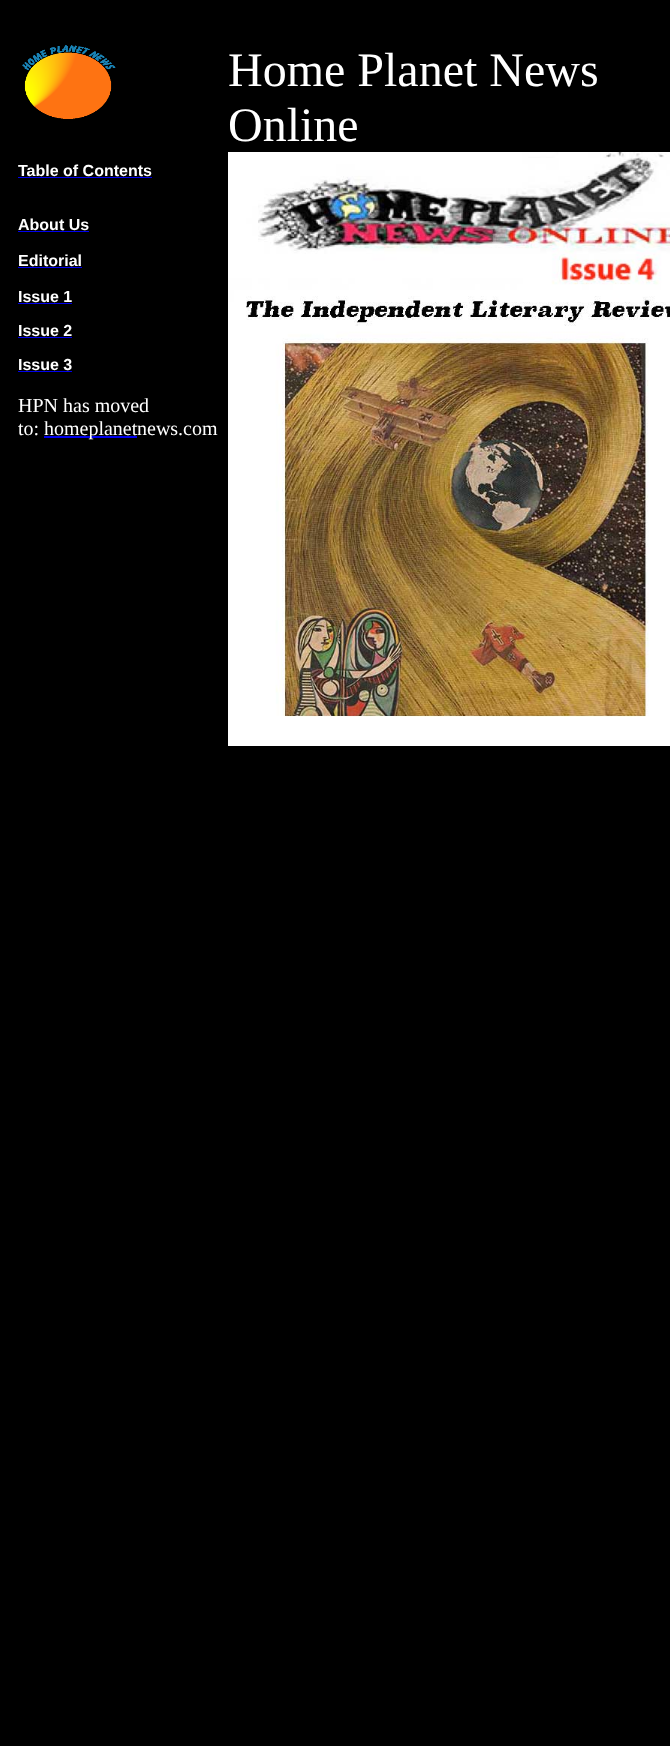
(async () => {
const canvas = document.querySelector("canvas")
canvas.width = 670
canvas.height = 1746
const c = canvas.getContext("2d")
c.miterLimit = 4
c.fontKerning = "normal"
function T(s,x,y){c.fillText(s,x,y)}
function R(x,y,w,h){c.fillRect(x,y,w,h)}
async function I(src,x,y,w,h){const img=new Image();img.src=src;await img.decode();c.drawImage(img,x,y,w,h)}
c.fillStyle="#000"
R(0,0,670,1746)
await I("1.png",22,45,94,74)
c.font="48px Liberation Serif"
c.fillStyle="#fff"
T("Home Planet News",228,86)
T("Online",228,141)
c.font="bold 16px Liberation Sans"
T("Table of Contents",18,176)
c.fillStyle="#00e"
R(18,177,134,1)
c.fillStyle="#fff"
T("About Us",18,230)
c.fillStyle="#00e"
R(18,231,71,1)
c.fillStyle="#fff"
T("Editorial",18,266)
c.fillStyle="#00e"
R(18,267,64,1)
c.fillStyle="#fff"
T("Issue 1",18,302)
c.fillStyle="#00e"
R(18,303,54,1)
c.fillStyle="#fff"
T("Issue 2",18,336)
c.fillStyle="#00e"
R(18,337,54,1)
c.fillStyle="#fff"
T("Issue 3",18,370)
c.fillStyle="#00e"
R(18,371,54,1)
c.font="20px Liberation Serif"
c.fillStyle="#fff"
T("HPN has moved",18,412)
T("to:",18,435)
c.fillStyle="#00e"
R(44,436,93,2)
c.fillStyle="#fff"
T("homeplanet",44,435)
c.fillStyle="#000"
R(137,434,1,1)
c.fillStyle="#fff"
T("news.com",137,435)
await I("2.png",228,152,442,594)
})()
